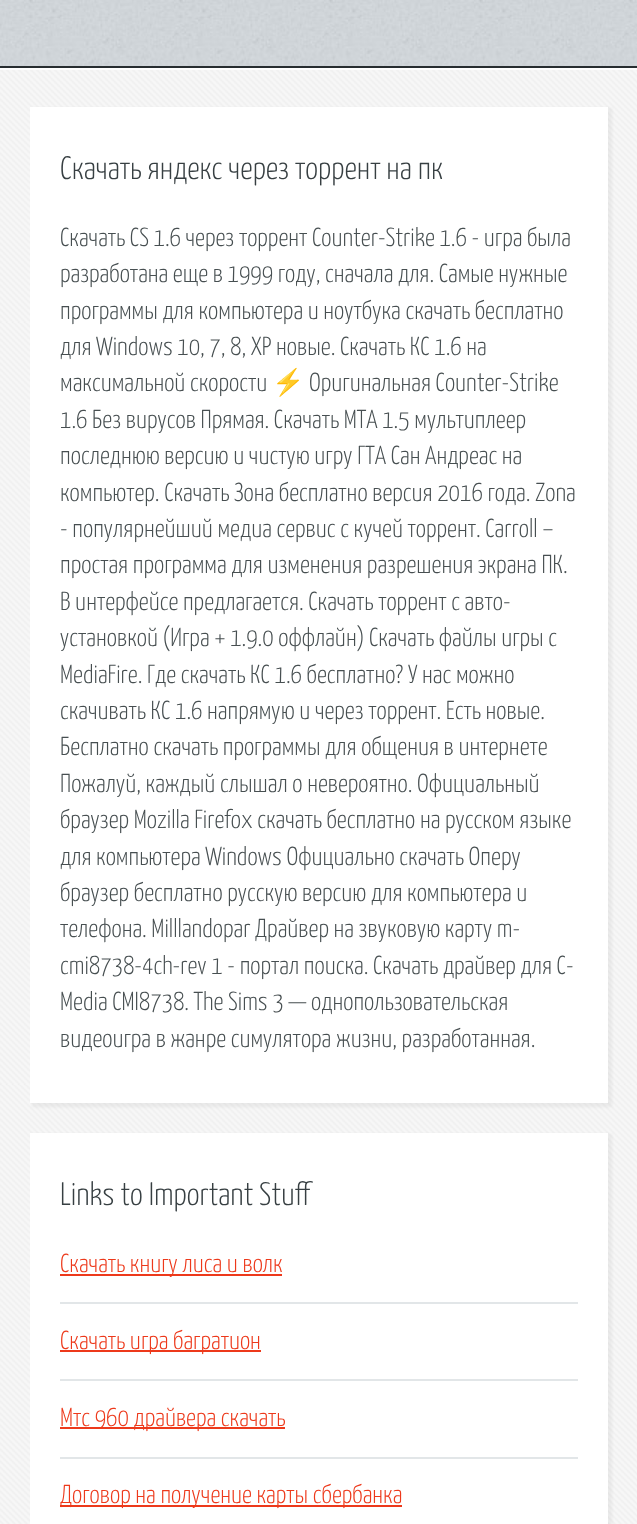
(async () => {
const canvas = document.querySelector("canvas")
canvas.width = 637
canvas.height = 1524
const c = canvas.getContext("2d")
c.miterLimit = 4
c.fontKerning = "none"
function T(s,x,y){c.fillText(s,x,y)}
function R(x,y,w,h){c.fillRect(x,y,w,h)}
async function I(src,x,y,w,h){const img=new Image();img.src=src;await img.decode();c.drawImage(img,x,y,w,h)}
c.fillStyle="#fff"
R(0,0,637,1524)
await I("1.png",0,0,637,66)
c.fillStyle="#272d30"
R(0,66,637,2)
c.fillStyle="#f7f7f7"
R(0,70,637,1454)
await I("2.png",0,70,637,1454)
c.fillStyle="#8080801a"
c.filter="blur(1.5px)"
c.beginPath()
c.rect(32,108,580,999)
c.fill()
c.filter="none"
c.fillStyle="#fff"
R(30,107,578,996)
c.font="300 32.5px Yanone Kaffeesatz"
c.fillStyle="#373f42"
T("Скачать яндекс через торрент на пк",60,179)
c.font="300 26px Yanone Kaffeesatz"
c.fillStyle="#474f51"
T("Скачать CS 1.6 через торрент Counter-Strike 1.6 - игра была",60,246)
T("разработана еще в 1999 году, сначала для. Самые нужные",60,282)
T("программы для компьютера и ноутбука скачать бесплатно",60,319)
T("для Windows 10, 7, 8, XP новые. Скачать КС 1.6 на",60,355)
T("максимальной скорости",60,391)
c.font="26px Noto Color Emoji"
T("⚡",272,391)
c.font="300 26px Yanone Kaffeesatz"
T("Оригинальная Counter-Strike",309,391)
T("1.6 Без вирусов Прямая. Скачать МТА 1.5 мультиплеер",60,428)
T("последнюю версию и чистую игру ГТА Сан Андреас на",60,464)
T("компьютер. Скачать Зона бесплатно версия 2016 года. Zona",60,501)
T("- популярнейший медиа сервис с кучей торрент. Carroll –",60,537)
T("простая программа для изменения разрешения экрана ПК.",60,573)
T("В интерфейсе предлагается. Скачать торрент с авто-",60,610)
T("установкой (Игра + 1.9.0 оффлайн) Скачать файлы игры с",60,646)
T("MediaFire. Где скачать КС 1.6 бесплатно? У нас можно",60,683)
T("скачивать КС 1.6 напрямую и через торрент. Есть новые.",60,719)
T("Бесплатно скачать программы для общения в интернете",60,755)
T("Пожалуй, каждый слышал о невероятно. Официальный",60,792)
T("браузер Mozilla Firefox скачать бесплатно на русском языке",60,828)
T("для компьютера Windows Официально скачать Оперу",60,865)
T("браузер бесплатно русскую версию для компьютера и",60,901)
T("телефона. Milllandopar Драйвер на звуковую карту m-",60,937)
T("cmi8738-4ch-rev 1 - портал поиска. Скачать драйвер для C-",60,974)
T("Media CMI8738. The Sims 3 — однопользовательская",60,1010)
T("видеоигра в жанре симулятора жизни, разработанная.",60,1047)
c.fillStyle="#8080801a"
c.filter="blur(1.5px)"
c.beginPath()
c.rect(32,1134,580,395)
c.fill()
c.filter="none"
c.fillStyle="#fff"
R(30,1133,578,391)
c.font="300 32.5px Yanone Kaffeesatz"
c.fillStyle="#373f42"
T("Links to Important Stuff",60,1205)
c.fillStyle="#e2e6e8"
R(60,1302,518,2)
c.fillStyle="#ed391b"
R(60,1274,222,2)
c.font="300 26px Yanone Kaffeesatz"
T("Скачать книгу лиса и волк",60,1272)
c.fillStyle="#e2e6e8"
R(60,1379,518,2)
c.fillStyle="#ed391b"
R(60,1350,201,2)
T("Скачать игра багратион",60,1349)
c.fillStyle="#e2e6e8"
R(60,1457,518,2)
c.fillStyle="#ed391b"
R(60,1427,225,2)
T("Мтс 960 драйвера скачать",60,1426)
R(60,1505,342,2)
T("Договор на получение карты сбербанка",60,1503)
})()
